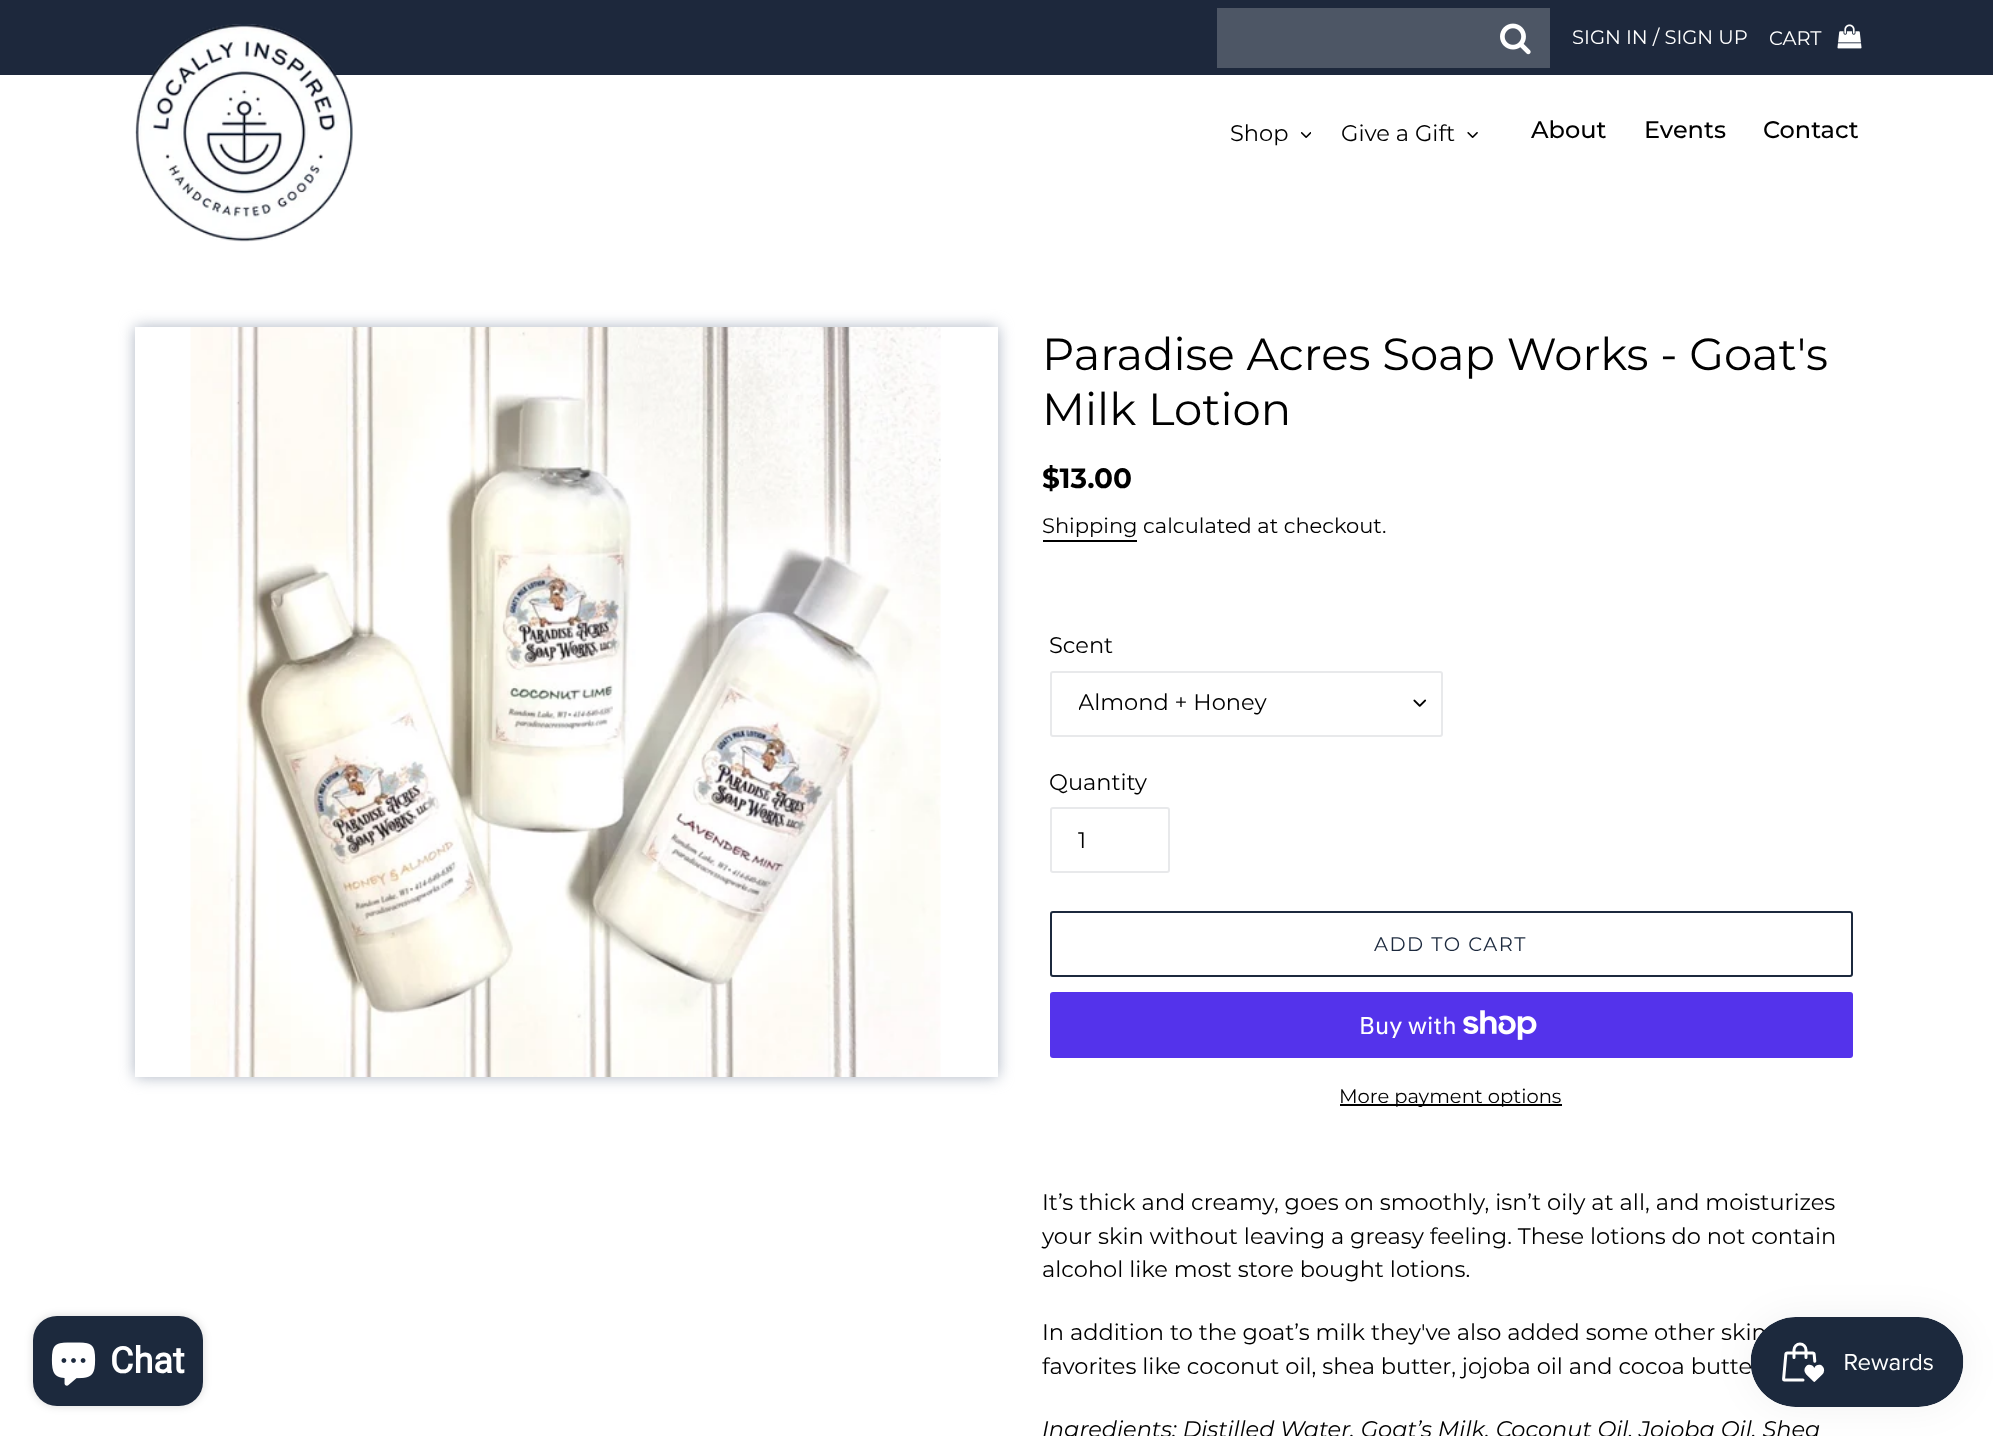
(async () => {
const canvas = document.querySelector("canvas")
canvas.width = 1993
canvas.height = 1436
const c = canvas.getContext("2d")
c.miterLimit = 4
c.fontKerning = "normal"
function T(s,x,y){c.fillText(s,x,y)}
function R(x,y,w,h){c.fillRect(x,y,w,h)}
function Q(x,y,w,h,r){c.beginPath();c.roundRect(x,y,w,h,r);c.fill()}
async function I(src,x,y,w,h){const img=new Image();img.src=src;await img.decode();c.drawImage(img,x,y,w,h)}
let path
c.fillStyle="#fff"
R(0,0,1993,1436)
c.fillStyle="#1d283c"
R(0,0,1993,75)
c.fillStyle="#4d5665"
R(1217,8,333,60)
await I("1.png",1500,23,31,32)
c.font="100 19.5px Montserrat"
c.fillStyle="#fff"
T("SIGN IN / SIGN UP",1572,44)
T("CART",1769,45)
await I("2.png",1837,24,25,25)
await I("3.png",135,24,218,218)
c.font="100 22.5px Montserrat"
c.fillStyle="#000"
T("Shop",1230,141)
await I("4.png",1301,132,10,6)
T("Give a Gift",1341,141)
await I("5.png",1467,132,11,6)
c.font="500 24px Montserrat"
T("About",1531,138)
T("Events",1644,138)
T("Contact",1763,138)
c.fillStyle="#00000026"
c.filter="blur(4px)"
c.beginPath()
c.roundRect(33,1316,170,90,24)
c.fill()
c.filter="none"
c.fillStyle="#1c293d"
Q(33,1316,170,90,24)
await I("6.png",51,1342,45,44)
c.font="bold 36px Roboto"
c.fillStyle="#fff"
T("Chat",110,1373)
c.save()
path = new Path2D("M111 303h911v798h-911zm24 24h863v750h-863z")
c.clip(path,"evenodd")
c.fillStyle="#adb5c3"
c.filter="blur(7.5px)"
c.beginPath()
c.rect(135,327,863,750)
c.fill()
c.filter="none"
c.restore()
await I("7.png",190,327,751,750)
c.font="100 45px Montserrat"
c.fillStyle="#000"
T("Paradise Acres Soap Works - Goat's",1042,370)
T("Milk Lotion",1042,425)
c.font="bold 28px Montserrat"
T("$13.00",1042,488)
c.font="100 21px Montserrat"
T("Shipping calculated at checkout.",1042,533)
R(1043,540,94,2)
c.font="100 22.5px Montserrat"
T("Scent",1049,653)
await I("8.png",1413,699,14,8)
c.beginPath()
c.roundRect(1051,672,391,64,2)
c.strokeStyle="#e8e9eb"
c.lineWidth=2
c.stroke()
c.save()
c.beginPath()
c.rect(1079,690,321,27)
c.clip()
T("Almond + Honey",1078,710)
c.restore()
T("Quantity",1049,790)
c.beginPath()
c.roundRect(1051,808,118,64,2)
c.stroke()
T("1",1078,848)
c.beginPath()
c.roundRect(1051,912,801,64,2)
c.strokeStyle="#1c293d"
c.stroke()
c.letterSpacing="1.5px"
c.font="100 19.5px Montserrat"
c.fillStyle="#1c293d"
T("ADD TO CART",1374,951)
c.fillStyle="#5433eb"
Q(1050,992,803,66,3)
c.letterSpacing="0px"
c.font="24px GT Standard"
c.fillStyle="#fff"
T("Buy with",1359,1034)
await I("9.png",1463,1010,74,30)
c.fillStyle="#000"
R(1340,1104,222,2)
c.font="100 19.5px Montserrat"
T("More payment options",1339,1103)
c.font="100 22.5px Montserrat"
T("It’s thick and creamy, goes on smoothly, isn’t oily at all, and moisturizes",1042,1210)
T("your skin without leaving a greasy feeling. These lotions do not contain",1042,1244)
T("alcohol like most store bought lotions.",1042,1277)
T("In addition to the goat’s milk they've also added some other skin",1042,1340)
T("favorites like coconut oil, shea butter, jojoba oil and cocoa butte",1042,1374)
c.font="italic 22.5px Montserrat"
T("Ingredients: Distilled Water, Goat’s Milk, Coconut Oil, Jojoba Oil, Shea",1042,1437)
c.fillStyle="#0000000d"
c.filter="blur(19px)"
c.beginPath()
c.roundRect(1751,1317,213,90,45)
c.fill()
c.filter="none"
await I("10.png",1750,1317,214,90)
})()
